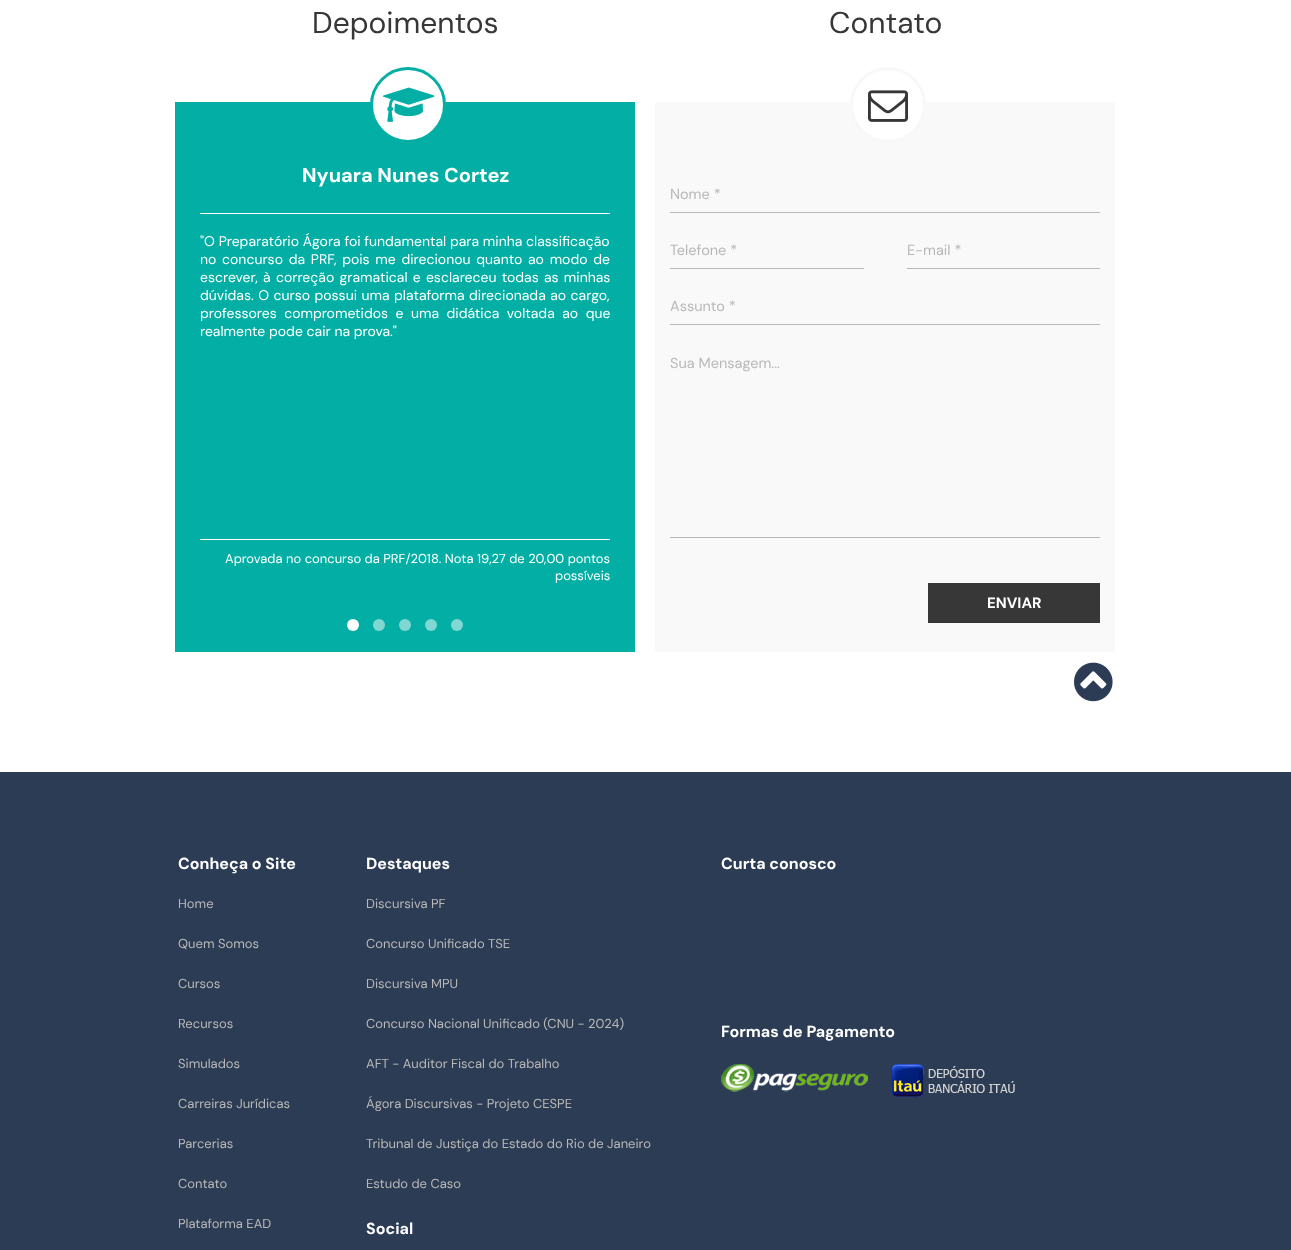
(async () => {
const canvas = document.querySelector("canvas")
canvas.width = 1291
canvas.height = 1250
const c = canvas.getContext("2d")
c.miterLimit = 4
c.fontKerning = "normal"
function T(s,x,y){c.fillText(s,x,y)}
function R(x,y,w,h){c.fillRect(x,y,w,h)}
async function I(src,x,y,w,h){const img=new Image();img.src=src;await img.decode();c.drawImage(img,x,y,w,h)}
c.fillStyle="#fff"
R(0,0,1291,1250)
c.font="30px DM Sans"
c.fillStyle="#373737"
T("Depoimentos",312,33)
c.fillStyle="#03afa5"
R(175,102,460,550)
c.fillStyle="#fff"
c.beginPath()
c.arc(408,105,36.5,0,7)
c.fill()
c.strokeStyle="#03afa5"
c.lineWidth=3
c.stroke()
await I("1.png",383,87,52,35)
R(200,213,410,1)
c.font="bold 20px DM Sans"
T("Nyuara Nunes Cortez",302,182)
c.font="14px DM Sans"
T("\"O Preparatório Ágora foi fundamental para minha classificação",200,246)
c.wordSpacing="2px"
T("no concurso da PRF, pois me direcionou quanto ao modo de",200,264)
c.wordSpacing="1.5px"
T("escrever, à correção gramatical e esclareceu todas as minhas",200,282)
c.wordSpacing="0.75px"
T("dúvidas. O curso possui uma plataforma direcionada ao cargo,",200,300)
c.wordSpacing="3.75px"
T("professores comprometidos e uma didática voltada ao que",200,318)
c.wordSpacing="0px"
T("realmente pode cair na prova.\"",200,336)
R(200,539,410,1)
c.font="13px DM Sans"
T("Aprovada no concurso da PRF/2018. Nota 19,27 de 20,00 pontos",225,563)
T("possíveis",555,580)
c.beginPath()
c.arc(353,625,6,0,7)
c.fill()
c.fillStyle="#81d7d2"
c.beginPath()
c.arc(379,625,6,0,7)
c.fill()
c.beginPath()
c.arc(405,625,6,0,7)
c.fill()
c.beginPath()
c.arc(431,625,6,0,7)
c.fill()
c.beginPath()
c.arc(457,625,6,0,7)
c.fill()
c.font="30px DM Sans"
c.fillStyle="#373737"
T("Contato",829,33)
c.fillStyle="#f9f9f9"
R(655,102,460,550)
c.fillStyle="#fff"
c.beginPath()
c.arc(888,105,38,0,7)
c.fill()
c.beginPath()
c.arc(888,105,36.5,0,7)
c.strokeStyle="#dedede33"
c.stroke()
await I("2.png",868,90,40,32)
c.fillStyle="#b8b8b8"
R(670,212,430,1)
c.font="14.5px DM Sans"
T("Nome *",670,199)
R(670,268,194,1)
T("Telefone *",670,255)
R(907,268,193,1)
T("E-mail *",907,255)
R(670,324,430,1)
T("Assunto *",670,311)
R(670,537,430,1)
T("Sua Mensagem...",670,368)
c.fillStyle="#373737"
R(928,583,172,40)
c.font="bold 15px DM Sans"
c.fillStyle="#fff"
T("ENVIAR",987,608)
await I("3.png",1074,662,39,40)
c.fillStyle="#2c3c54"
R(0,772,1291,478)
c.font="bold 16px DM Sans"
c.fillStyle="#fff"
T("Conheça o Site",178,869)
c.font="13px DM Sans"
c.fillStyle="#b8b8b8"
T("Home",178,908)
T("Quem Somos",178,948)
T("Cursos",178,988)
T("Recursos",178,1028)
T("Simulados",178,1068)
T("Carreiras Jurídicas",178,1108)
T("Parcerias",178,1148)
T("Contato",178,1188)
T("Plataforma EAD",178,1228)
c.font="bold 16px DM Sans"
c.fillStyle="#fff"
T("Destaques",366,869)
c.font="13px DM Sans"
c.fillStyle="#b8b8b8"
T("Discursiva PF",366,908)
T("Concurso Unificado TSE",366,948)
T("Discursiva MPU",366,988)
T("Concurso Nacional Unificado (CNU - 2024)",366,1028)
T("AFT - Auditor Fiscal do Trabalho",366,1068)
T("Ágora Discursivas - Projeto CESPE",366,1108)
T("Tribunal de Justiça do Estado do Rio de Janeiro",366,1148)
T("Estudo de Caso",366,1188)
c.font="bold 16px DM Sans"
c.fillStyle="#fff"
T("Social",366,1234)
T("Curta conosco",721,869)
T("Formas de Pagamento",721,1037)
await I("4.png",721,1064,147,28)
await I("5.png",891,1064,124,33)
})()
